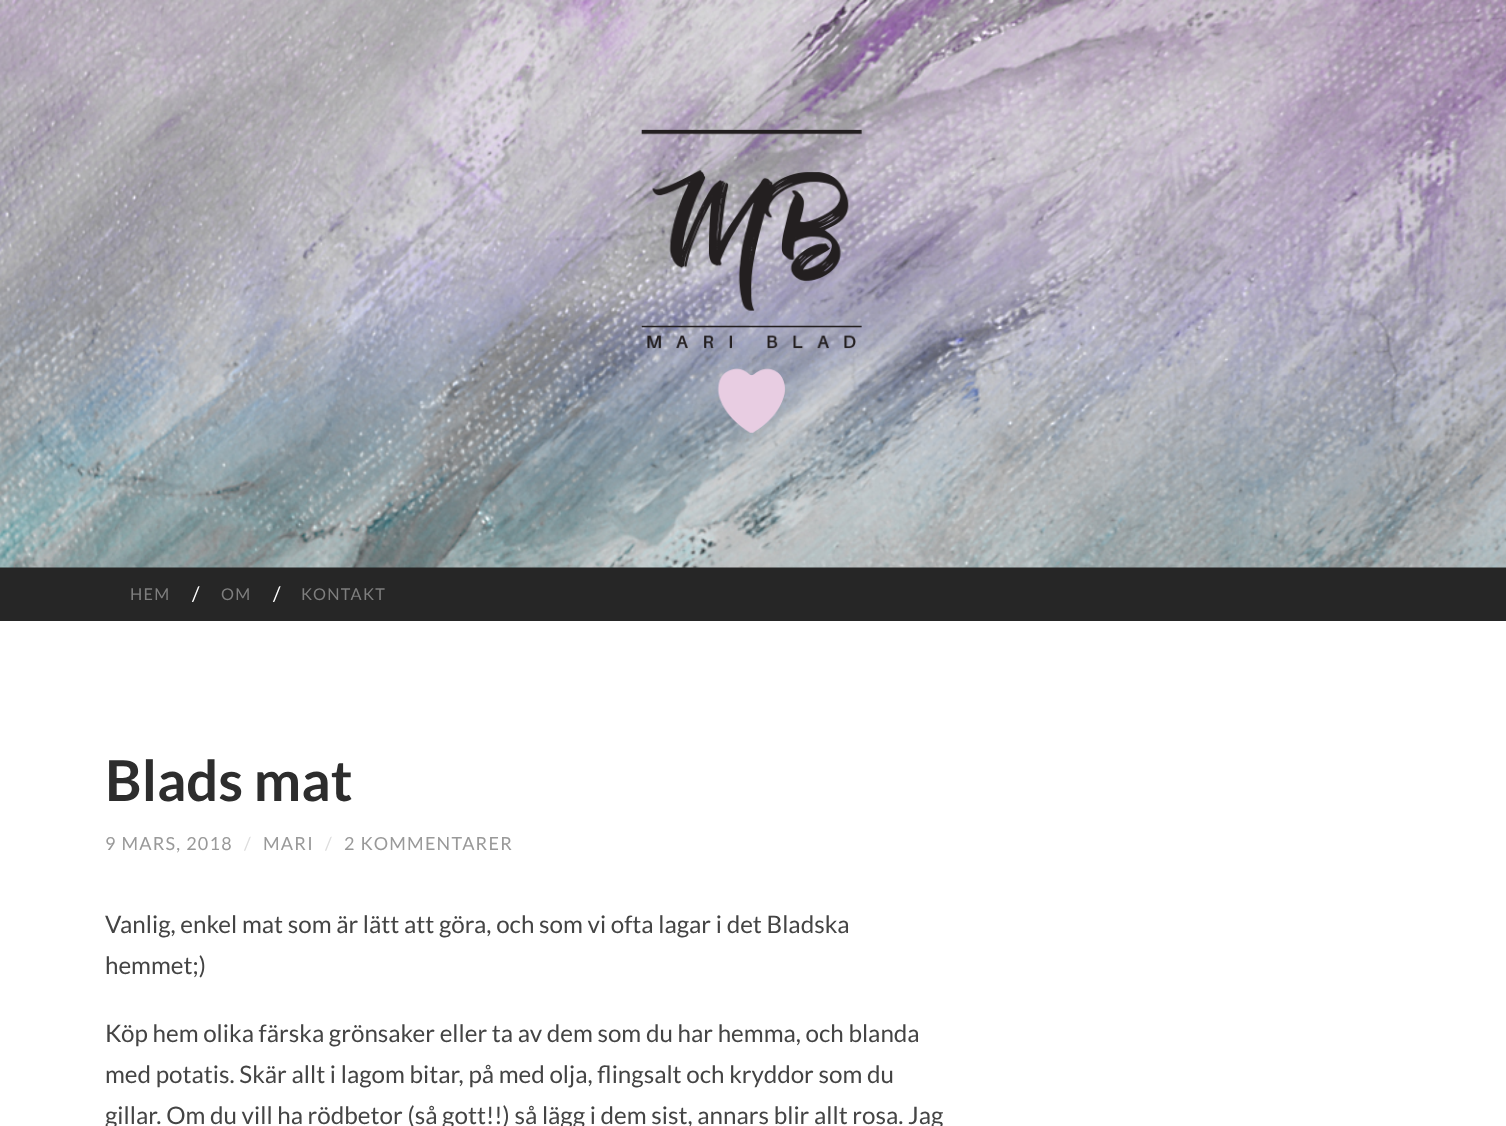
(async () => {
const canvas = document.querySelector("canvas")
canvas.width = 1506
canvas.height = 1126
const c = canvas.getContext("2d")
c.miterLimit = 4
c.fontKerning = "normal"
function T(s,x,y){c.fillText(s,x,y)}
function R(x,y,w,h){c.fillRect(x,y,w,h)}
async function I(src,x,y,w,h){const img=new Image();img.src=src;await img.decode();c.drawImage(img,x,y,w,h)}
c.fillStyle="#fff"
R(0,0,1506,1126)
c.fillStyle="#262626"
R(0,567,1506,54)
await I("1.png",0,0,1506,568)
await I("2.png",641,129,221,304)
c.letterSpacing="1.25px"
c.font="16.25px Lato"
c.fillStyle="#7e7e7e"
T("HEM",130,600)
c.letterSpacing="0px"
c.font="20px Lato"
c.fillStyle="#fff"
T("/",192,601)
c.letterSpacing="1.25px"
c.font="16.25px Lato"
c.fillStyle="#7e7e7e"
T("OM",221,600)
c.letterSpacing="0px"
c.font="20px Lato"
c.fillStyle="#fff"
T("/",273,601)
c.letterSpacing="1.25px"
c.font="16.25px Lato"
c.fillStyle="#7e7e7e"
T("KONTAKT",301,600)
c.letterSpacing="0px"
c.font="bold 56.25px Lato"
c.fillStyle="#2d2d2d"
T("Blads mat",105,801)
c.letterSpacing="1.25px"
c.font="18px Lato"
c.fillStyle="#999"
T("9 MARS, 2018",105,850)
c.fillStyle="#ddd"
T("/",244,850)
c.fillStyle="#999"
T("MARI",263,850)
c.fillStyle="#ddd"
T("/",325,850)
c.fillStyle="#999"
T("2 KOMMENTARER",344,850)
c.letterSpacing="0px"
c.font="24.2px Lato"
c.fillStyle="#444"
T("Vanlig, enkel mat som är lätt att göra, och som vi ofta lagar i det Bladska",105,933)
T("hemmet;)",105,974)
T("Köp hem olika färska grönsaker eller ta av dem som du har hemma, och blanda",105,1042)
T("med potatis. Skär allt i lagom bitar, på med olja, flingsalt och kryddor som du",105,1083)
T("gillar. Om du vill ha rödbetor (så gott!!) så lägg i dem sist, annars blir allt rosa. Jag",105,1124)
})()
